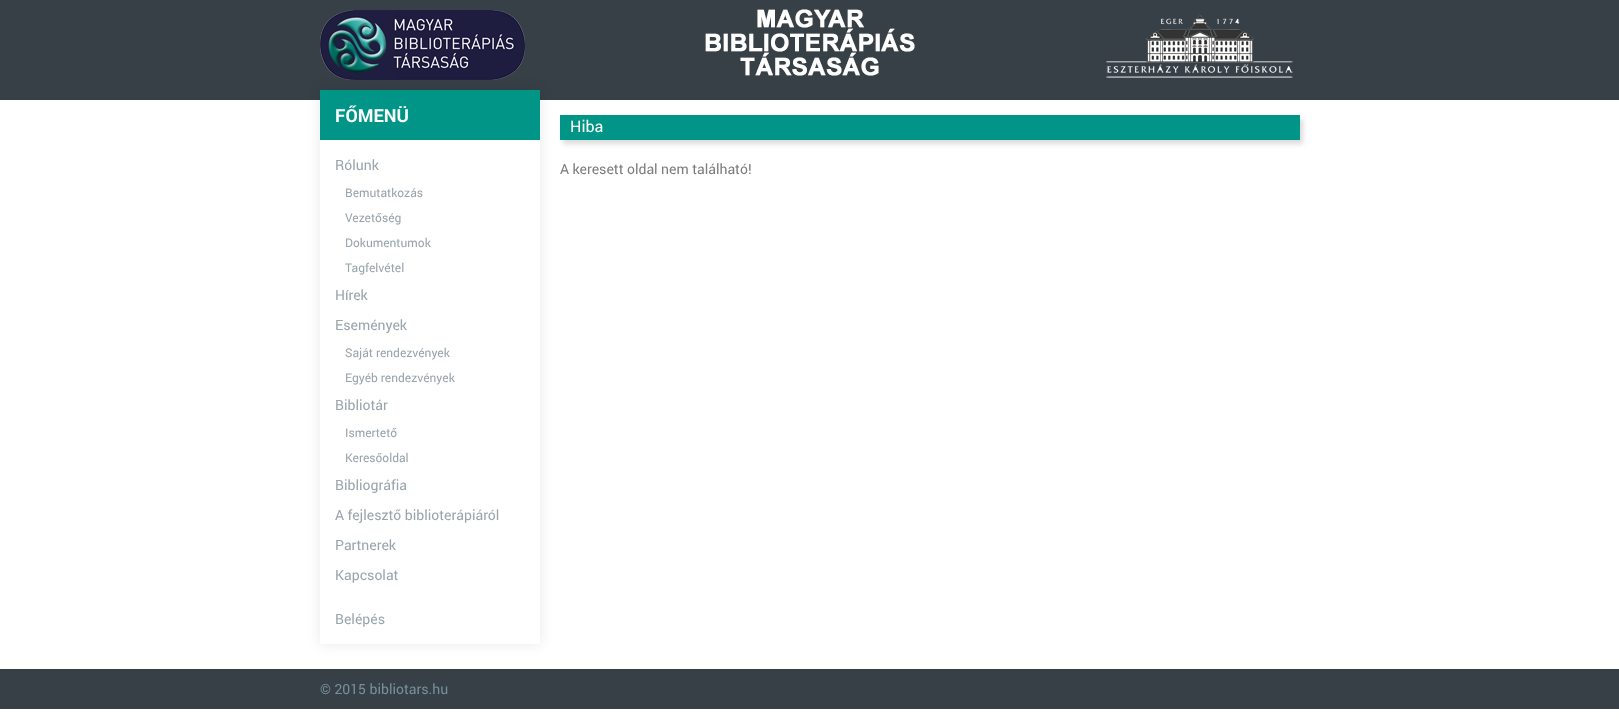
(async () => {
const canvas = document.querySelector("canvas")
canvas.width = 1619
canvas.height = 720
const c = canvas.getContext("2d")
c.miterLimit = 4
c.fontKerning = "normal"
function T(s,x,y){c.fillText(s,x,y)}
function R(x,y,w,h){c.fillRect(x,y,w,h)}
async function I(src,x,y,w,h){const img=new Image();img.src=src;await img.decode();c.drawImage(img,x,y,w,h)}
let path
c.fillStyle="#fff"
R(0,0,1619,720)
c.fillStyle="#374046"
R(0,0,1619,100)
await I("1.png",705,8,215,72)
await I("2.png",320,10,205,70)
await I("3.png",1106,15,187,63)
c.save()
path = new Path2D("M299 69h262v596h-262zm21 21h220v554h-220z")
c.clip(path,"evenodd")
c.fillStyle="#00000017"
c.filter="blur(6.5px)"
c.beginPath()
c.rect(320,90,220,554)
c.fill()
c.filter="none"
c.restore()
c.fillStyle="#009587"
R(320,90,220,50)
c.font="bold 18px Roboto"
c.fillStyle="#fff"
T("FŐMENÜ",335,122)
c.font="14px Roboto"
c.fillStyle="#99a4ab"
T("Rólunk",335,170)
c.font="12px Roboto"
T("Bemutatkozás",345,197)
T("Vezetőség",345,222)
T("Dokumentumok",345,247)
T("Tagfelvétel",345,272)
c.font="14px Roboto"
T("Hírek",335,300)
T("Események",335,330)
c.font="12px Roboto"
T("Saját rendezvények",345,357)
T("Egyéb rendezvények",345,382)
c.font="14px Roboto"
T("Bibliotár",335,410)
c.font="12px Roboto"
T("Ismertető",345,437)
T("Keresőoldal",345,462)
c.font="14px Roboto"
T("Bibliográfia",335,490)
T("A fejlesztő biblioterápiáról",335,520)
T("Partnerek",335,550)
T("Kapcsolat",335,580)
T("Belépés",335,624)
c.fillStyle="#00000024"
c.filter="blur(2.5px)"
c.beginPath()
c.rect(563,119,740,25)
c.fill()
c.filter="none"
c.fillStyle="#009587"
R(560,115,740,25)
c.font="16px Roboto"
c.fillStyle="#fff"
T("Hiba",570,132)
c.font="14px Roboto"
c.fillStyle="#7c7c7c"
T("A keresett oldal nem található!",560,174)
c.fillStyle="#374046"
R(0,669,1619,40)
c.fillStyle="#788f9e"
T("© 2015 bibliotars.hu",320,694)
})()
